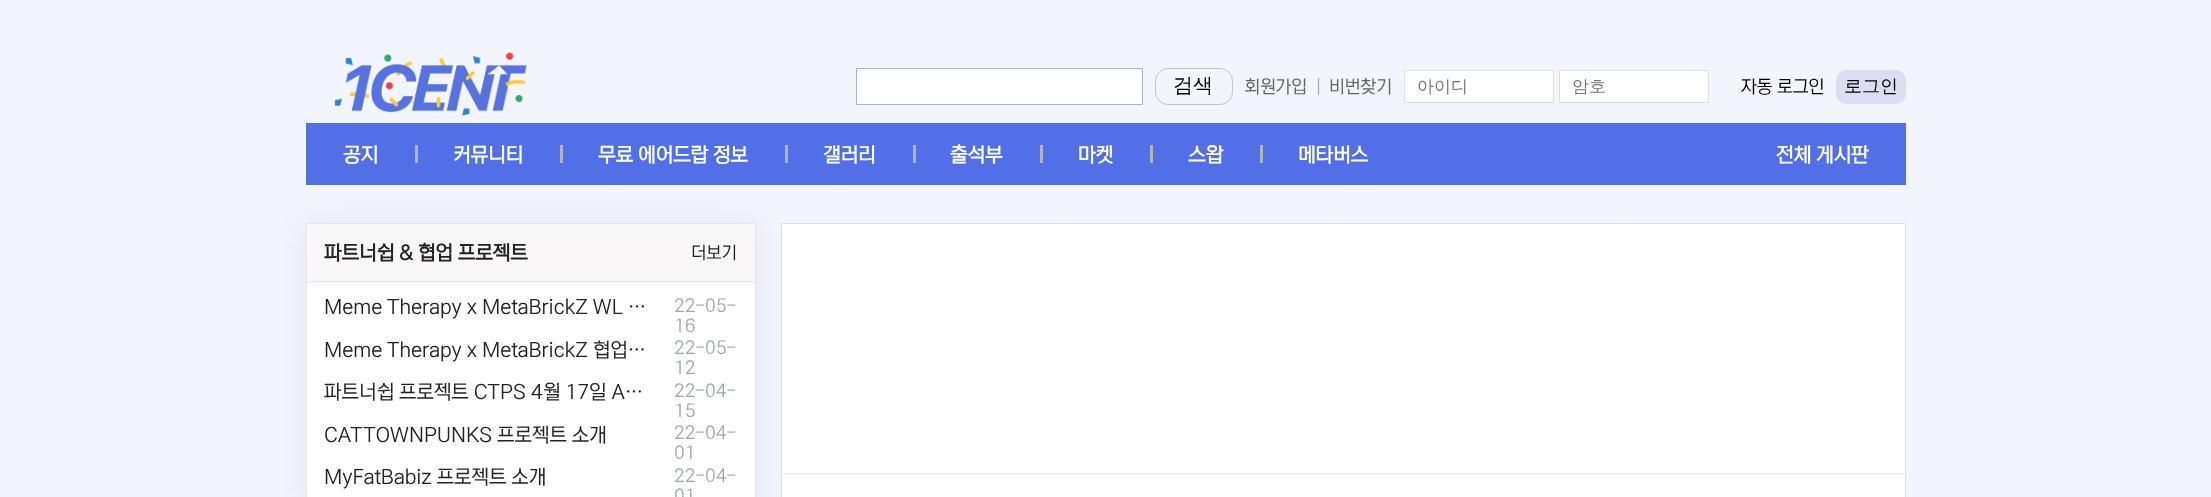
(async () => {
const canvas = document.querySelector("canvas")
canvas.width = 2211
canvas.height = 497
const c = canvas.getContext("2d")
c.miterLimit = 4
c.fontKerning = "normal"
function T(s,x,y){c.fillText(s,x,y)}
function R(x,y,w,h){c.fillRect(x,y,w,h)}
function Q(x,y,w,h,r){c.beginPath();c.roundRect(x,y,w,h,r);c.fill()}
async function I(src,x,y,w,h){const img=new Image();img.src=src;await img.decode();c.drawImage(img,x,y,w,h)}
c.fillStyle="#f3f5fd"
R(0,0,2211,497)
await I("1.png",334,52,193,64)
c.fillStyle="#fff"
c.beginPath()
c.rect(856.5,68.5,286,36)
c.fill()
c.strokeStyle="#abb1d4"
c.stroke()
c.beginPath()
c.roundRect(1155.5,68.5,77,36,12.5)
c.strokeStyle="#c2c4ca"
c.stroke()
c.font="500 20px WenQuanYi Zen Hei"
c.fillStyle="#000"
T("검색",1173,92)
c.font="18px 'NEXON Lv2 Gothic'"
c.fillStyle="#616265"
T("회원가입",1244,92)
c.fillStyle="#aaacb1"
T("|",1315,92)
c.fillStyle="#616265"
T("비번찾기",1329,92)
c.fillStyle="#fff"
c.beginPath()
c.rect(1404.5,70.5,149,32)
c.fill()
c.strokeStyle="#dfdfe0"
c.stroke()
c.font="500 17px WenQuanYi Zen Hei"
c.fillStyle="#757575"
T("아이디",1417,92)
c.fillStyle="#fff"
c.beginPath()
c.rect(1559.5,70.5,149,32)
c.fill()
c.stroke()
c.fillStyle="#757575"
T("암호",1572,92)
c.font="18px 'NEXON Lv2 Gothic'"
c.fillStyle="#000"
T("자동 로그인",1741,92)
c.fillStyle="#dbdef2"
Q(1836,70,70,34,10)
c.font="500 18px WenQuanYi Zen Hei"
c.fillStyle="#000"
T("로그인",1844,92)
c.fillStyle="#526fe8"
R(306,123,1600,62)
c.font="bold 20px 'NEXON Lv2 Gothic'"
c.fillStyle="#fff"
T("공지",343,161)
c.fillStyle="#b5b4b5"
R(415,145,3,18)
c.fillStyle="#fff"
T("커뮤니티",453,161)
c.fillStyle="#b5b4b5"
R(560,145,3,18)
c.fillStyle="#fff"
T("무료 에어드랍 정보",598,161)
c.fillStyle="#b5b4b5"
R(785,145,3,18)
c.fillStyle="#fff"
T("갤러리",823,161)
c.fillStyle="#b5b4b5"
R(913,145,3,18)
c.fillStyle="#fff"
T("출석부",950,161)
c.fillStyle="#b5b4b5"
R(1040,145,3,18)
c.fillStyle="#fff"
T("마켓",1078,161)
c.fillStyle="#b5b4b5"
R(1150,145,3,18)
c.fillStyle="#fff"
T("스왑",1188,161)
c.fillStyle="#b5b4b5"
R(1260,145,3,18)
c.fillStyle="#fff"
T("메타버스",1298,161)
T("전체 게시판",1776,161)
c.fillStyle="#0000000f"
c.filter="blur(19px)"
c.beginPath()
c.rect(306,225,450,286)
c.fill()
c.filter="none"
c.fillStyle="#fff"
c.beginPath()
c.rect(306.5,223.5,449,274)
c.fill()
c.strokeStyle="#e5e5e5"
c.stroke()
c.fillStyle="#f9f7f7"
R(308,224,447,59)
c.fillStyle="#e5e5e5"
R(308,281,447,1)
c.fillStyle="#222"
T("파트너쉽 & 협업 프로젝트",324,259)
c.font="17.5px 'NEXON Lv2 Gothic'"
T("더보기",691,258)
c.font="20px 'NEXON Lv2 Gothic'"
T("Meme Therapy x MetaBrickZ WL …",324,313)
c.font="18px 'NEXON Lv2 Gothic'"
c.fillStyle="#9da5b6"
T("22-05-",674,311)
T("16",674,331)
c.font="20px 'NEXON Lv2 Gothic'"
c.fillStyle="#222"
T("Meme Therapy x MetaBrickZ 협업…",324,356)
c.font="18px 'NEXON Lv2 Gothic'"
c.fillStyle="#9da5b6"
T("22-05-",674,353)
T("12",674,373)
c.font="20px 'NEXON Lv2 Gothic'"
c.fillStyle="#222"
T("파트너쉽 프로젝트 CTPS 4월 17일 A…",324,398)
c.font="18px 'NEXON Lv2 Gothic'"
c.fillStyle="#9da5b6"
T("22-04-",674,396)
T("15",674,416)
c.font="20px 'NEXON Lv2 Gothic'"
c.fillStyle="#222"
T("CATTOWNPUNKS 프로젝트 소개",324,441)
c.font="18px 'NEXON Lv2 Gothic'"
c.fillStyle="#9da5b6"
T("22-04-",674,438)
T("01",674,458)
c.font="20px 'NEXON Lv2 Gothic'"
c.fillStyle="#222"
T("MyFatBabiz 프로젝트 소개",324,483)
c.font="18px 'NEXON Lv2 Gothic'"
c.fillStyle="#9da5b6"
T("22-04-",674,481)
T("01",674,501)
c.fillStyle="#fff"
c.beginPath()
c.rect(781.5,223.5,1124,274)
c.fill()
c.strokeStyle="#dedede"
c.stroke()
c.fillStyle="#e7e7e7"
R(783,473,1122,1)
})()
